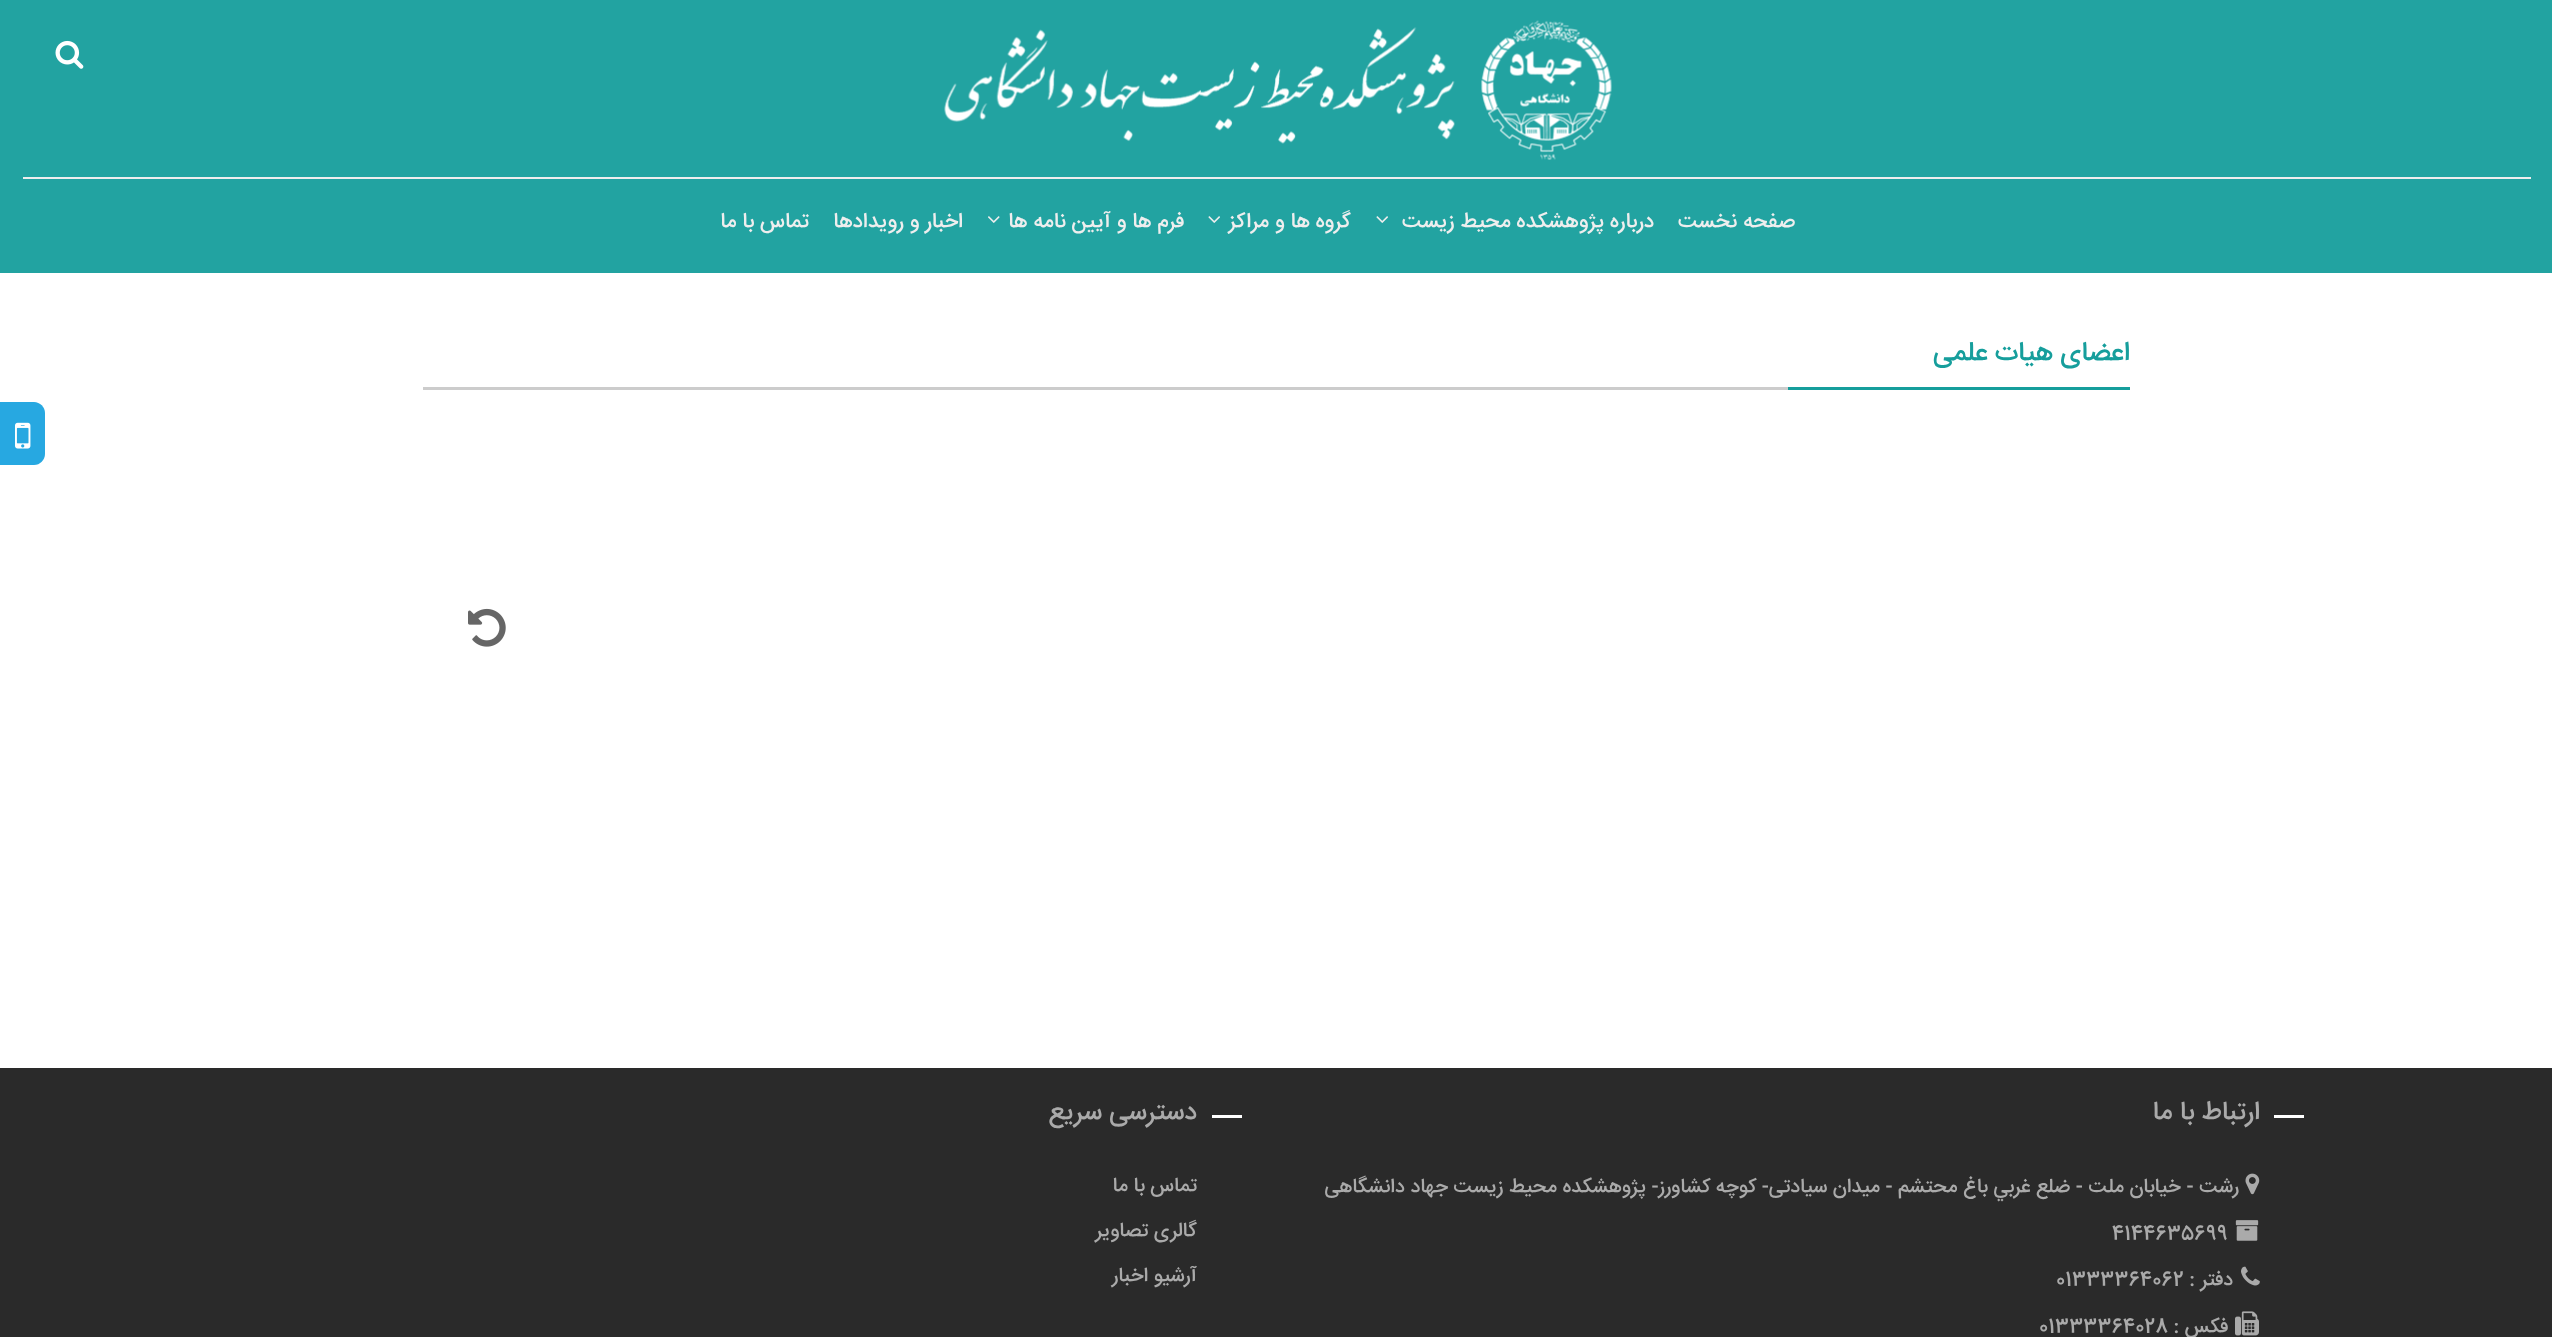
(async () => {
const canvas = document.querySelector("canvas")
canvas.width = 2552
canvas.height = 1337
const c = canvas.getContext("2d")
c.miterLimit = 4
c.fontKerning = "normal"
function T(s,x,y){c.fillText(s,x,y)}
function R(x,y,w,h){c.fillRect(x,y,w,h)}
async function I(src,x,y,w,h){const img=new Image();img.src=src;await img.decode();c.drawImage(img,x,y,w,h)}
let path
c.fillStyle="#fff"
R(0,0,2552,1337)
c.fillStyle="#22a3a1"
R(0,0,2552,273)
await I("1.png",944,20,668,140)
await I("2.png",55,40,29,29)
c.fillStyle="#eee"
R(23,177,2508,2)
c.direction="rtl"
c.font="500 21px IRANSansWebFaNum"
T("صفحه نخست",1795,227)
T("درباره پژوهشکده محیط زیست",1654,227)
await I("3.png",1376,216,12,7)
T("گروه ها و مراکز",1351,227)
await I("3.png",1208,216,12,7)
T("فرم ها و آیین نامه ها",1184,227)
await I("4.png",988,216,12,7)
T("اخبار و رویدادها",963,227)
T("تماس با ما",809,227)
c.fillStyle="#ccc"
R(423,387,1365,3)
c.font="500 27px IRANSansWebFaNum"
c.fillStyle="#169e9c"
T("اعضای هیات علمی",2130,360)
R(1788,387,342,3)
await I("5.png",468,608,38,39)
c.fillStyle="#27a8e1"
path = new Path2D("M-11 402h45c6 0 11 5 11 11v41c0 6-5 11-11 11h-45z")
c.fill(path)
await I("6.png",15,422,16,27)
c.fillStyle="#2a2a2a"
R(0,1068,2552,269)
c.fillStyle="#fff"
R(2274,1115,30,3)
c.font="500 26px IRANSansWebFaNum"
c.fillStyle="#aaa"
T("ارتباط با ما",2260,1119)
await I("7.png",2245,1173,15,22)
c.font="500 20px IRANSansWebFaNum"
T("رشت - خيابان ملت - ضلع غربي باغ محتشم - میدان سیادتی- کوچه کشاورز- پژوهشکده محیط زیست جهاد دانشگاهی",2239,1192)
await I("8.png",2235,1220,24,21)
c.direction="ltr"
T("4144635699",2112,1239)
await I("9.png",2241,1266,19,20)
c.direction="rtl"
T("دفتر :",2233,1285)
c.direction="ltr"
T("01333364062",2056,1285)
await I("10.png",2235,1311,24,25)
c.direction="rtl"
T("فکس :",2228,1332)
c.direction="ltr"
T("01333364028",2039,1332)
c.fillStyle="#fff"
R(1212,1115,30,3)
c.direction="rtl"
c.font="500 26px IRANSansWebFaNum"
c.fillStyle="#aaa"
T("دسترسی سریع",1197,1119)
c.font="500 20px IRANSansWebFaNum"
T("تماس با ما",1197,1191)
T("گالری تصاویر",1197,1236)
T("آرشیو اخبار",1197,1281)
})()
